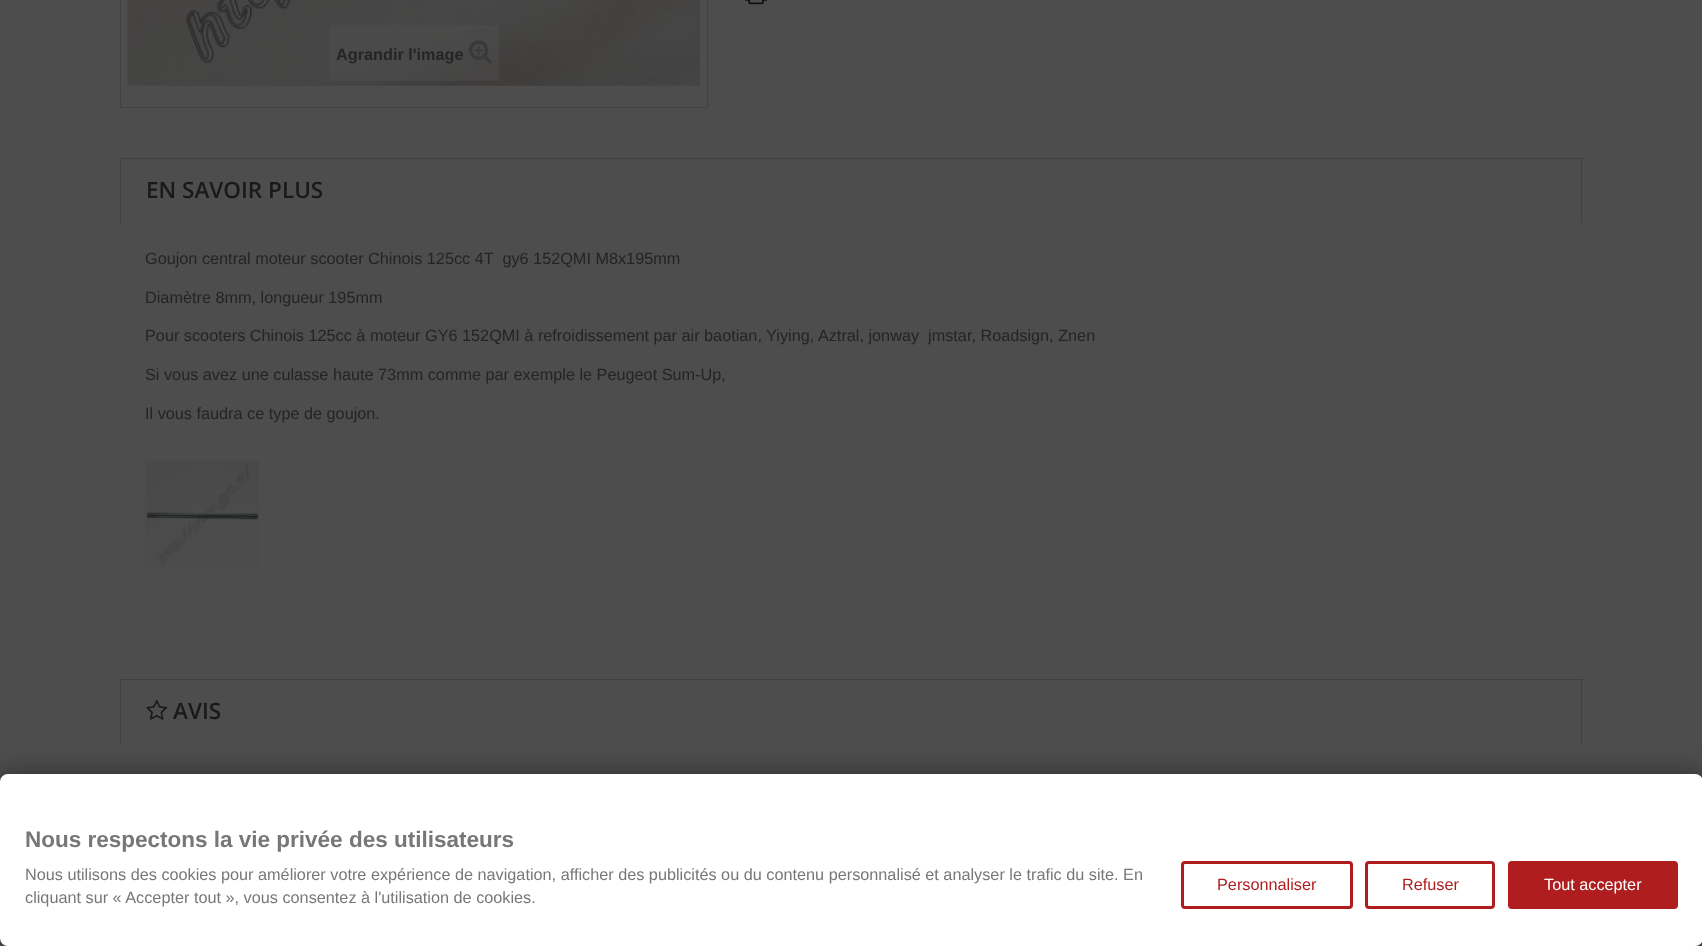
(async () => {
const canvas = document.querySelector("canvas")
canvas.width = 1702
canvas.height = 946
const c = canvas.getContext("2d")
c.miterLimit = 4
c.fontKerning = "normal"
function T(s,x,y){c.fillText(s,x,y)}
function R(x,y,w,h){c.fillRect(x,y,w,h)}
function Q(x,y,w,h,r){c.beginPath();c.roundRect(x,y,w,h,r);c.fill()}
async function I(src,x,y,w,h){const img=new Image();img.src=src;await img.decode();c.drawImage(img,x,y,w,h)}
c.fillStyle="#4d4d4d"
R(0,0,1702,946)
await I("1.png",745,0,23,5)
c.strokeStyle="#424242"
c.strokeRect(120.5,-.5,587,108)
await I("2.png",127,0,573,86)
c.fillStyle="#4d4d4d80"
R(329,25,170,56)
c.font="bold 16.25px Liberation Sans"
c.fillStyle="#242424"
T("Agrandir l'image",336,60)
await I("3.png",468,40,24,24)
c.fillStyle="#404040"
R(120,158,1463,1)
R(1581,158,1,65)
R(120,158,1,65)
c.font="600 22.5px Open Sans"
c.fillStyle="#1a1919"
T("EN SAVOIR PLUS",146,198)
c.font="16.25px Liberation Sans"
c.fillStyle="#242424"
T("Goujon central moteur scooter Chinois 125cc 4T  gy6 152QMI M8x195mm",145,264)
T("Diamètre 8mm, longueur 195mm",145,303)
T("Pour scooters Chinois 125cc à moteur GY6 152QMI à refroidissement par air baotian, Yiying, Aztral, jonway  jmstar, Roadsign, Znen",145,341)
T("Si vous avez une culasse haute 73mm comme par exemple le Peugeot Sum-Up,",145,380)
T("Il vous faudra ce type de goujon.",145,419)
await I("4.png",145,459,114,111)
c.fillStyle="#404040"
R(120,679,1463,1)
R(1581,679,1,65)
R(120,679,1,65)
await I("5.png",146,699,22,21)
c.font="600 22.5px Open Sans"
c.fillStyle="#1a1919"
T("AVIS",173,719)
c.fillStyle="#00000066"
c.filter="blur(12.5px)"
c.beginPath()
c.roundRect(0,774,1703,172,8)
c.fill()
c.filter="none"
c.fillStyle="#fff"
Q(0,774,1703,172,8)
c.font="bold 22.5px Liberation Sans"
c.fillStyle="#777"
T("Nous respectons la vie privée des utilisateurs",25,847)
c.font="16.25px Liberation Sans"
T("Nous utilisons des cookies pour améliorer votre expérience de navigation, afficher des publicités ou du contenu personnalisé et analyser le trafic du site. En",25,880)
T("cliquant sur « Accepter tout », vous consentez à l'utilisation de cookies.",25,903)
c.beginPath()
c.roundRect(1182.5,862.5,169,45,2.5)
c.strokeStyle="#af1d1f"
c.lineWidth=3
c.stroke()
c.fillStyle="#af1d1f"
T("Personnaliser",1217,890)
c.beginPath()
c.roundRect(1366.5,862.5,127,45,2.5)
c.stroke()
T("Refuser",1402,890)
c.beginPath()
c.roundRect(1509.5,862.5,167,45,2.5)
c.fill()
c.stroke()
c.fillStyle="#fff"
T("Tout accepter",1544,890)
})()
